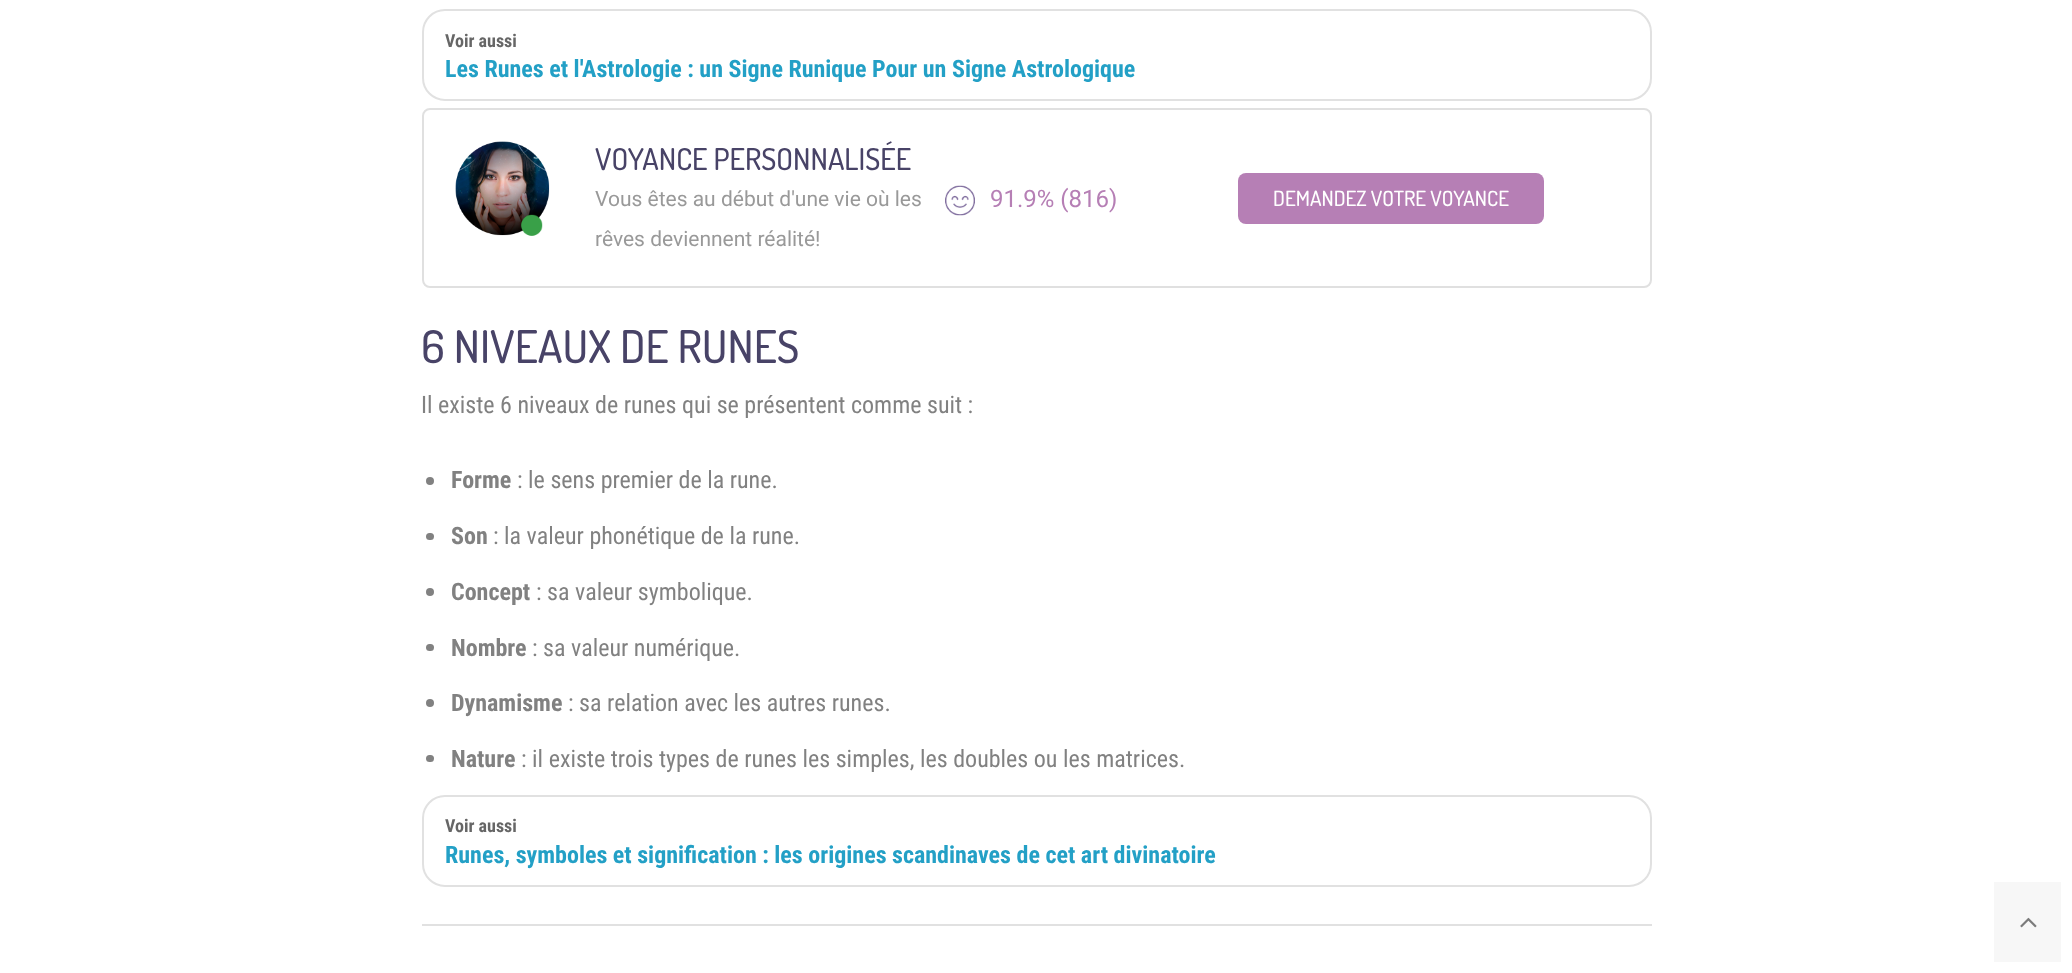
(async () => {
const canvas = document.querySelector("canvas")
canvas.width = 2072
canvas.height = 973
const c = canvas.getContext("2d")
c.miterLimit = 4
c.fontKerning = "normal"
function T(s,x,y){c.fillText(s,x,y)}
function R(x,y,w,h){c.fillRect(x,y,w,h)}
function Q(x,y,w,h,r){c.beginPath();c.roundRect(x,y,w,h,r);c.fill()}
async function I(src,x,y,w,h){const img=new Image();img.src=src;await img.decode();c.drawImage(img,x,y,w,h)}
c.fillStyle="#fff"
R(0,0,2072,973)
c.beginPath()
c.roundRect(423,10,1228,90,22)
c.strokeStyle="#e1e1e1"
c.lineWidth=2
c.stroke()
c.font="bold 18px Roboto Condensed"
c.fillStyle="#666"
T("Voir aussi",445,47)
c.font="bold 24px Roboto Condensed"
c.fillStyle="#23a0c6"
T("Les Runes et l'Astrologie : un Signe Runique Pour un Signe Astrologique",445,77)
c.beginPath()
c.roundRect(423,109,1228,178,7)
c.strokeStyle="#e0e0e0"
c.stroke()
await I("1.png",455,141,95,95)
await I("2.png",521,214,22,22)
c.font="500 30px Dosis"
c.fillStyle="#484367"
T("VOYANCE PERSONNALISÉE",595,170)
c.font="21px Roboto"
c.fillStyle="#999"
T("Vous êtes au début d'une vie où les",595,206)
T("rêves deviennent réalité!",595,246)
await I("3.png",945,185,30,31)
c.font="24px Roboto"
c.fillStyle="#b67fb5"
T("91.9% (816)",990,207)
Q(1238,173,306,51,8)
c.font="500 21px Dosis"
c.fillStyle="#fff"
T("DEMANDEZ VOTRE VOYANCE",1273,206)
c.font="500 45px Dosis"
c.fillStyle="#484367"
T("6 NIVEAUX DE RUNES",421,363)
c.font="24px Roboto Condensed"
c.fillStyle="#818181"
T("Il existe 6 niveaux de runes qui se présentent comme suit :",421,413)
c.beginPath()
c.arc(430,481,4,0,7)
c.fill()
c.font="bold 24px Roboto Condensed"
T("Forme",451,488)
c.font="24px Roboto Condensed"
T(": le sens premier de la rune.",517,488)
Q(426,533,8,7,3.5)
c.font="bold 24px Roboto Condensed"
T("Son",451,544)
c.font="24px Roboto Condensed"
T(": la valeur phonétique de la rune.",493,544)
c.beginPath()
c.arc(430,592,4,0,7)
c.fill()
c.font="bold 24px Roboto Condensed"
T("Concept",451,600)
c.font="24px Roboto Condensed"
T(": sa valeur symbolique.",536,600)
Q(426,644,8,7,3.5)
c.font="bold 24px Roboto Condensed"
T("Nombre",451,656)
c.font="24px Roboto Condensed"
T(": sa valeur numérique.",532,656)
c.beginPath()
c.arc(430,703,4,0,7)
c.fill()
c.font="bold 24px Roboto Condensed"
T("Dynamisme",451,711)
c.font="24px Roboto Condensed"
T(": sa relation avec les autres runes.",568,711)
Q(426,755,8,7,3.5)
c.font="bold 24px Roboto Condensed"
T("Nature",451,767)
c.font="24px Roboto Condensed"
T(": il existe trois types de runes les simples, les doubles ou les matrices.",521,767)
c.beginPath()
c.roundRect(423,796,1228,90,22)
c.strokeStyle="#e1e1e1"
c.stroke()
c.font="bold 18px Roboto Condensed"
c.fillStyle="#666"
T("Voir aussi",445,832)
c.font="bold 24px Roboto Condensed"
c.fillStyle="#23a0c6"
T("Runes, symboles et signification : les origines scandinaves de cet art divinatoire",445,863)
c.fillStyle="#e1e1e1"
R(422,924,1230,2)
c.fillStyle="#f7f7f7"
R(1994,882,67,80)
await I("4.png",2020,917,17,11)
})()
